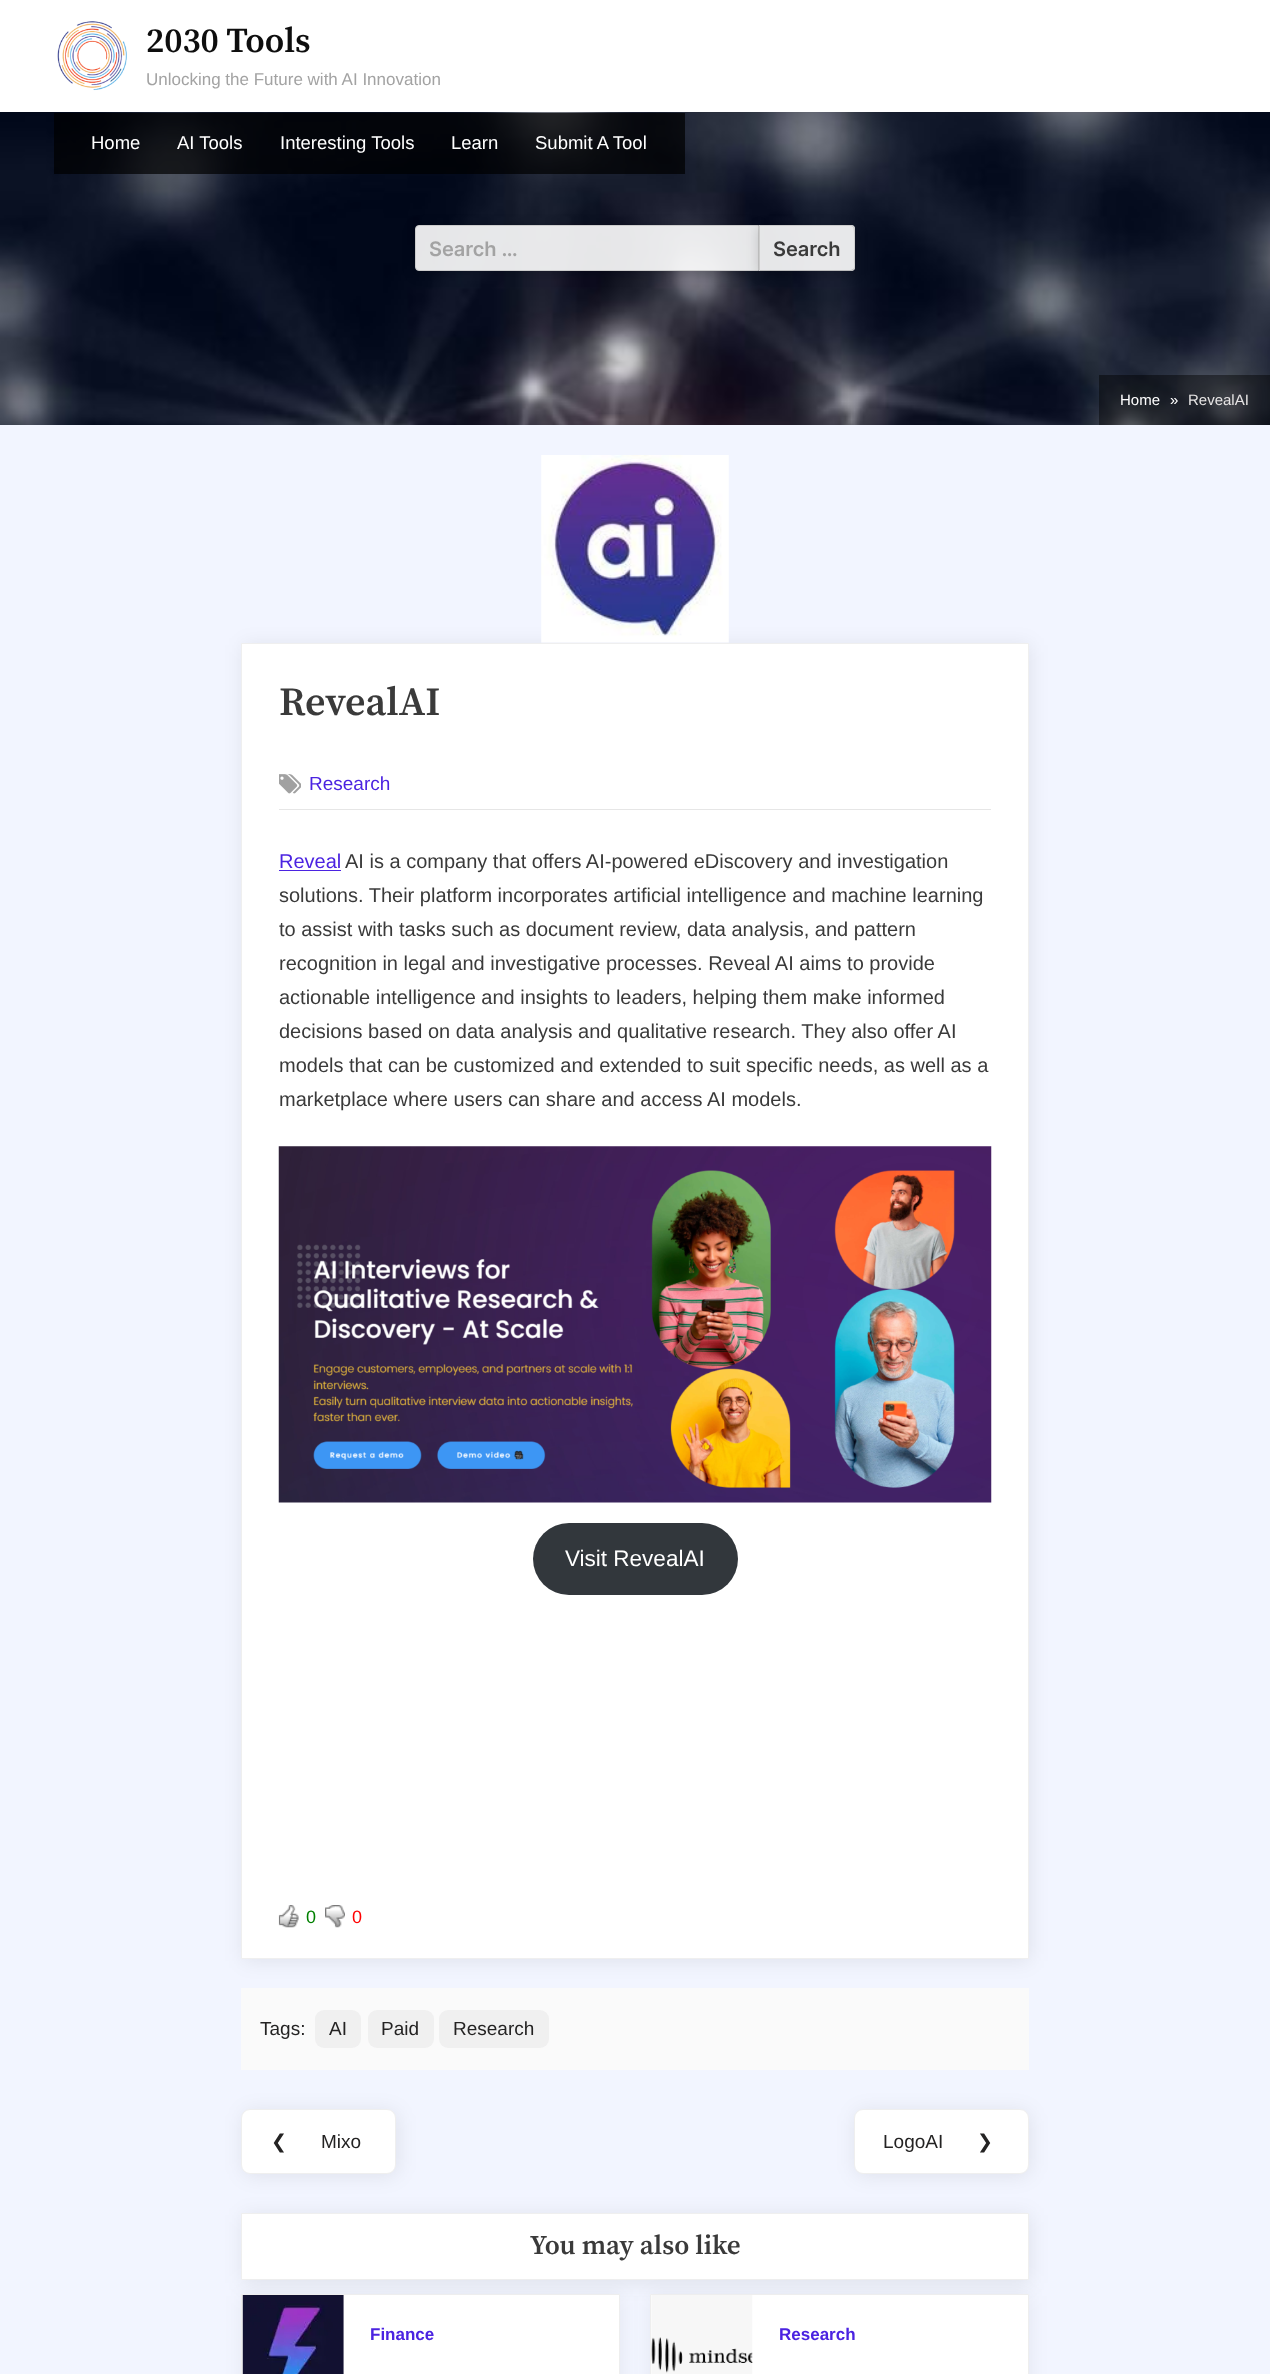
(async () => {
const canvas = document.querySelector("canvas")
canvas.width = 1270
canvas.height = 2374
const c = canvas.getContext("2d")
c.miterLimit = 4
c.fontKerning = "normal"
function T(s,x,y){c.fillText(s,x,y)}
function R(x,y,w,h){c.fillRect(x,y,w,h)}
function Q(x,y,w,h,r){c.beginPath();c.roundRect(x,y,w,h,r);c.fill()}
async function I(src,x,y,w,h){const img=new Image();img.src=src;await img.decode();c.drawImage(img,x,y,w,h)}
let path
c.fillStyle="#f2f5ff"
R(0,0,1270,2374)
c.fillStyle="#fff"
R(0,0,1270,112)
await I("1.png",57,21,70,70)
c.font="600 35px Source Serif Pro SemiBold"
c.fillStyle="#0e0e0e"
T("2030 Tools",146,52)
c.font="17px Liberation Sans"
c.fillStyle="#a3a3a3"
T("Unlocking the Future with AI Innovation",146,85)
await I("2.png",0,112,1270,313)
c.fillStyle="#000000b3"
R(54,113,631,61)
c.font="18.5px Liberation Sans"
c.fillStyle="#fff"
T("Home",91,149)
T("AI Tools",177,149)
T("Interesting Tools",280,149)
T("Learn",451,149)
T("Submit A Tool",535,149)
c.save()
path = new Path2D("M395 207h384v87h-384zm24 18h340v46h-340c-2 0-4-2-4-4v-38c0-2 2-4 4-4z")
c.clip(path,"evenodd")
c.fillStyle="#00000026"
c.filter="blur(6px)"
c.beginPath()
c.roundRect(414,226,346,49,5)
c.fill()
c.filter="none"
c.restore()
c.fillStyle="#ffffffe6"
c.beginPath()
c.roundRect(415.5,225.5,343,45,[3.5,0,0,3.5])
c.fill()
c.strokeStyle="#ccc"
c.stroke()
c.font="600 20px Inter"
c.fillStyle="#a3a3a3"
T("Search …",429,256)
c.save()
path = new Path2D("M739 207h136v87h-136zm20 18h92c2 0 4 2 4 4v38c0 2-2 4-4 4h-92z")
c.clip(path,"evenodd")
c.fillStyle="#00000026"
c.filter="blur(6px)"
c.beginPath()
c.roundRect(758,226,98,49,5)
c.fill()
c.filter="none"
c.restore()
c.fillStyle="#ffffffe6"
c.beginPath()
c.roundRect(759,225,96,46,[0,4,4,0])
c.fill()
c.fillStyle="#ccc"
path = new Path2D("M759 225l1 1h91l2 1l1-1l-3-1z")
c.fill(path)
path = new Path2D("M855 268v-39c0-1-1-2-1-3l-1 1c2 2 1 30 1 35c0 0 1 6-1 7l1 1z")
c.fill(path)
c.fillStyle="#bbb"
path = new Path2D("M854 270l-3 1h-92l1-1h91l2-1z")
c.fill(path)
c.fillStyle="#ccc"
path = new Path2D("M759 225v46l1-1v-44z")
c.fill(path)
c.fillStyle="#3a3a3a"
T("Search",773,256)
c.fillStyle="#00000073"
R(1099,375,171,50)
c.font="15px Liberation Sans"
c.fillStyle="#fff"
T("Home",1120,405)
T("»",1170,405)
c.fillStyle="#e7e5e5"
T("RevealAI",1188,405)
c.fillStyle="#00000014"
c.filter="blur(10px)"
c.beginPath()
c.rect(243,645,787,1316)
c.fill()
c.filter="none"
await I("3.png",541,455,188,188)
c.fillStyle="#fff"
c.beginPath()
c.rect(241.5,643.5,787,1315)
c.fill()
c.strokeStyle="#efefef"
c.stroke()
c.font="600 40px Source Serif Pro SemiBold"
c.fillStyle="#3a3a3a"
T("RevealAI",279,715)
await I("4.png",279,774,22,20)
c.font="19px Liberation Sans"
c.fillStyle="#4b23e1"
T("Research",309,790)
c.fillStyle="#e6e6e6"
R(279,809,712,1)
c.font="20px Liberation Sans"
c.fillStyle="#4b23e1"
T("Reveal",279,868)
R(279,870,62,1)
c.fillStyle="#3a3a3a"
T("AI is a company that offers AI-powered eDiscovery and investigation",345,868)
T("solutions. Their platform incorporates artificial intelligence and machine learning",279,902)
T("to assist with tasks such as document review, data analysis, and pattern",279,936)
T("recognition in legal and investigative processes. Reveal AI aims to provide",279,970)
T("actionable intelligence and insights to leaders, helping them make informed",279,1004)
T("decisions based on data analysis and qualitative research. They also offer AI",279,1038)
T("models that can be customized and extended to suit specific needs, as well as a",279,1072)
T("marketplace where users can share and access AI models.",279,1106)
await I("5.png",278,1146,714,357)
c.fillStyle="#32373c"
Q(533,1523,205,72,36)
c.font="22.5px Liberation Sans"
c.fillStyle="#fff"
T("Visit RevealAI",565,1566)
await I("6.png",278,1905,21,23)
c.font="18px Liberation Sans"
c.fillStyle="#008000"
T("0",306,1923)
await I("7.png",325,1905,20,23)
c.fillStyle="#f00"
T("0",352,1923)
c.fillStyle="#fafafa"
R(241,1988,788,82)
c.font="19px Liberation Sans"
c.fillStyle="#242323"
T("Tags:",260,2035)
c.fillStyle="#f0f0f0"
Q(315,2010,46,38,9)
c.fillStyle="#242323"
T("AI",329,2035)
c.fillStyle="#f0f0f0"
Q(368,2010,66,38,9)
c.fillStyle="#242323"
T("Paid",381,2035)
c.fillStyle="#f0f0f0"
Q(439,2010,110,38,9)
c.fillStyle="#242323"
T("Research",453,2035)
c.fillStyle="#00000014"
c.filter="blur(10px)"
c.beginPath()
c.roundRect(243,2111,155,65,9)
c.fill()
c.filter="none"
c.fillStyle="#fff"
c.beginPath()
c.roundRect(241.5,2109.5,154,64,8.5)
c.fill()
c.stroke()
c.font="19px DejaVu Sans"
c.fillStyle="#242323"
T("❮",271,2148)
c.font="19px Liberation Sans"
T("Mixo",321,2148)
c.fillStyle="#00000014"
c.filter="blur(10px)"
c.beginPath()
c.roundRect(855,2111,175,65,9)
c.fill()
c.filter="none"
c.fillStyle="#fff"
c.beginPath()
c.roundRect(854.5,2109.5,174,64,8.5)
c.fill()
c.stroke()
c.fillStyle="#242323"
T("LogoAI",883,2148)
c.font="19px DejaVu Sans"
T("❯",977,2148)
c.fillStyle="#00000014"
c.filter="blur(10px)"
c.beginPath()
c.rect(243,2215,787,68)
c.fill()
c.filter="none"
c.fillStyle="#fff"
c.beginPath()
c.rect(241.5,2213.5,787,66)
c.fill()
c.stroke()
c.font="600 27px Source Serif Pro SemiBold"
c.fillStyle="#3a3a3a"
T("You may also like",530,2254)
c.fillStyle="#0000000f"
c.filter="blur(10px)"
c.beginPath()
c.rect(243,2296,378,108)
c.fill()
c.filter="none"
c.fillStyle="#fff"
c.beginPath()
c.rect(241.5,2294.5,378,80)
c.fill()
c.strokeStyle="#eee"
c.stroke()
await I("8.png",242,2295,102,79)
c.font="bold 17px Liberation Sans"
c.fillStyle="#4b23e1"
T("Finance",370,2340)
c.fillStyle="#0000000f"
c.filter="blur(10px)"
c.beginPath()
c.rect(651,2296,379,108)
c.fill()
c.filter="none"
c.fillStyle="#fff"
c.beginPath()
c.rect(650.5,2294.5,378,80)
c.fill()
c.stroke()
await I("9.png",651,2295,102,79)
c.fillStyle="#4b23e1"
T("Research",779,2340)
})()
